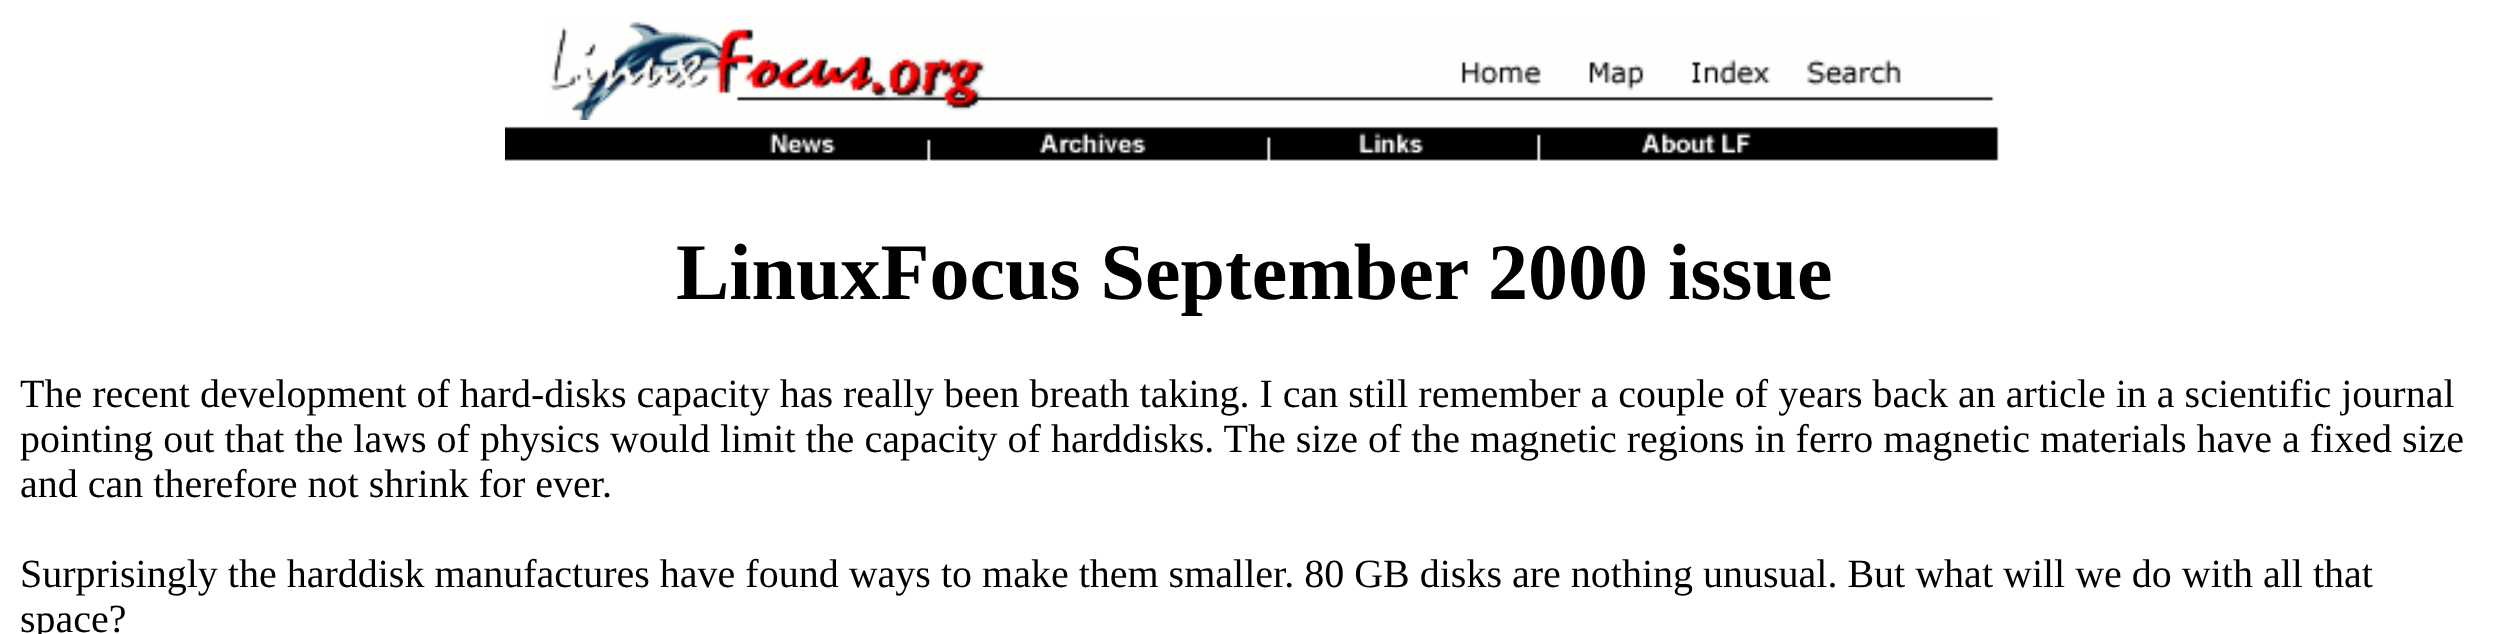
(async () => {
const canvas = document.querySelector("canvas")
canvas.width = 2506
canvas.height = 634
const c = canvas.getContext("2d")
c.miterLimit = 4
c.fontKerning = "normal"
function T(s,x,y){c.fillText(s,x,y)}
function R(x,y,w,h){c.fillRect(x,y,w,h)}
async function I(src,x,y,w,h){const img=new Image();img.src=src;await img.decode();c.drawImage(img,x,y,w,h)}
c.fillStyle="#fff"
R(0,0,2506,634)
await I("1.png",549,21,1445,99)
await I("2.png",505,126,1494,35)
c.font="bold 80px Liberation Serif"
c.fillStyle="#000"
T("LinuxFocus September 2000 issue",676,299)
c.font="40px Liberation Serif"
T("The recent development of hard-disks capacity has really been breath taking. I can still remember a couple of years back an article in a scientific journal",20,407)
T("pointing out that the laws of physics would limit the capacity of harddisks. The size of the magnetic regions in ferro magnetic materials have a fixed size",20,452)
T("and can therefore not shrink for ever.",20,497)
T("Surprisingly the harddisk manufactures have found ways to make them smaller. 80 GB disks are nothing unusual. But what will we do with all that",20,587)
T("space?",20,632)
})()
